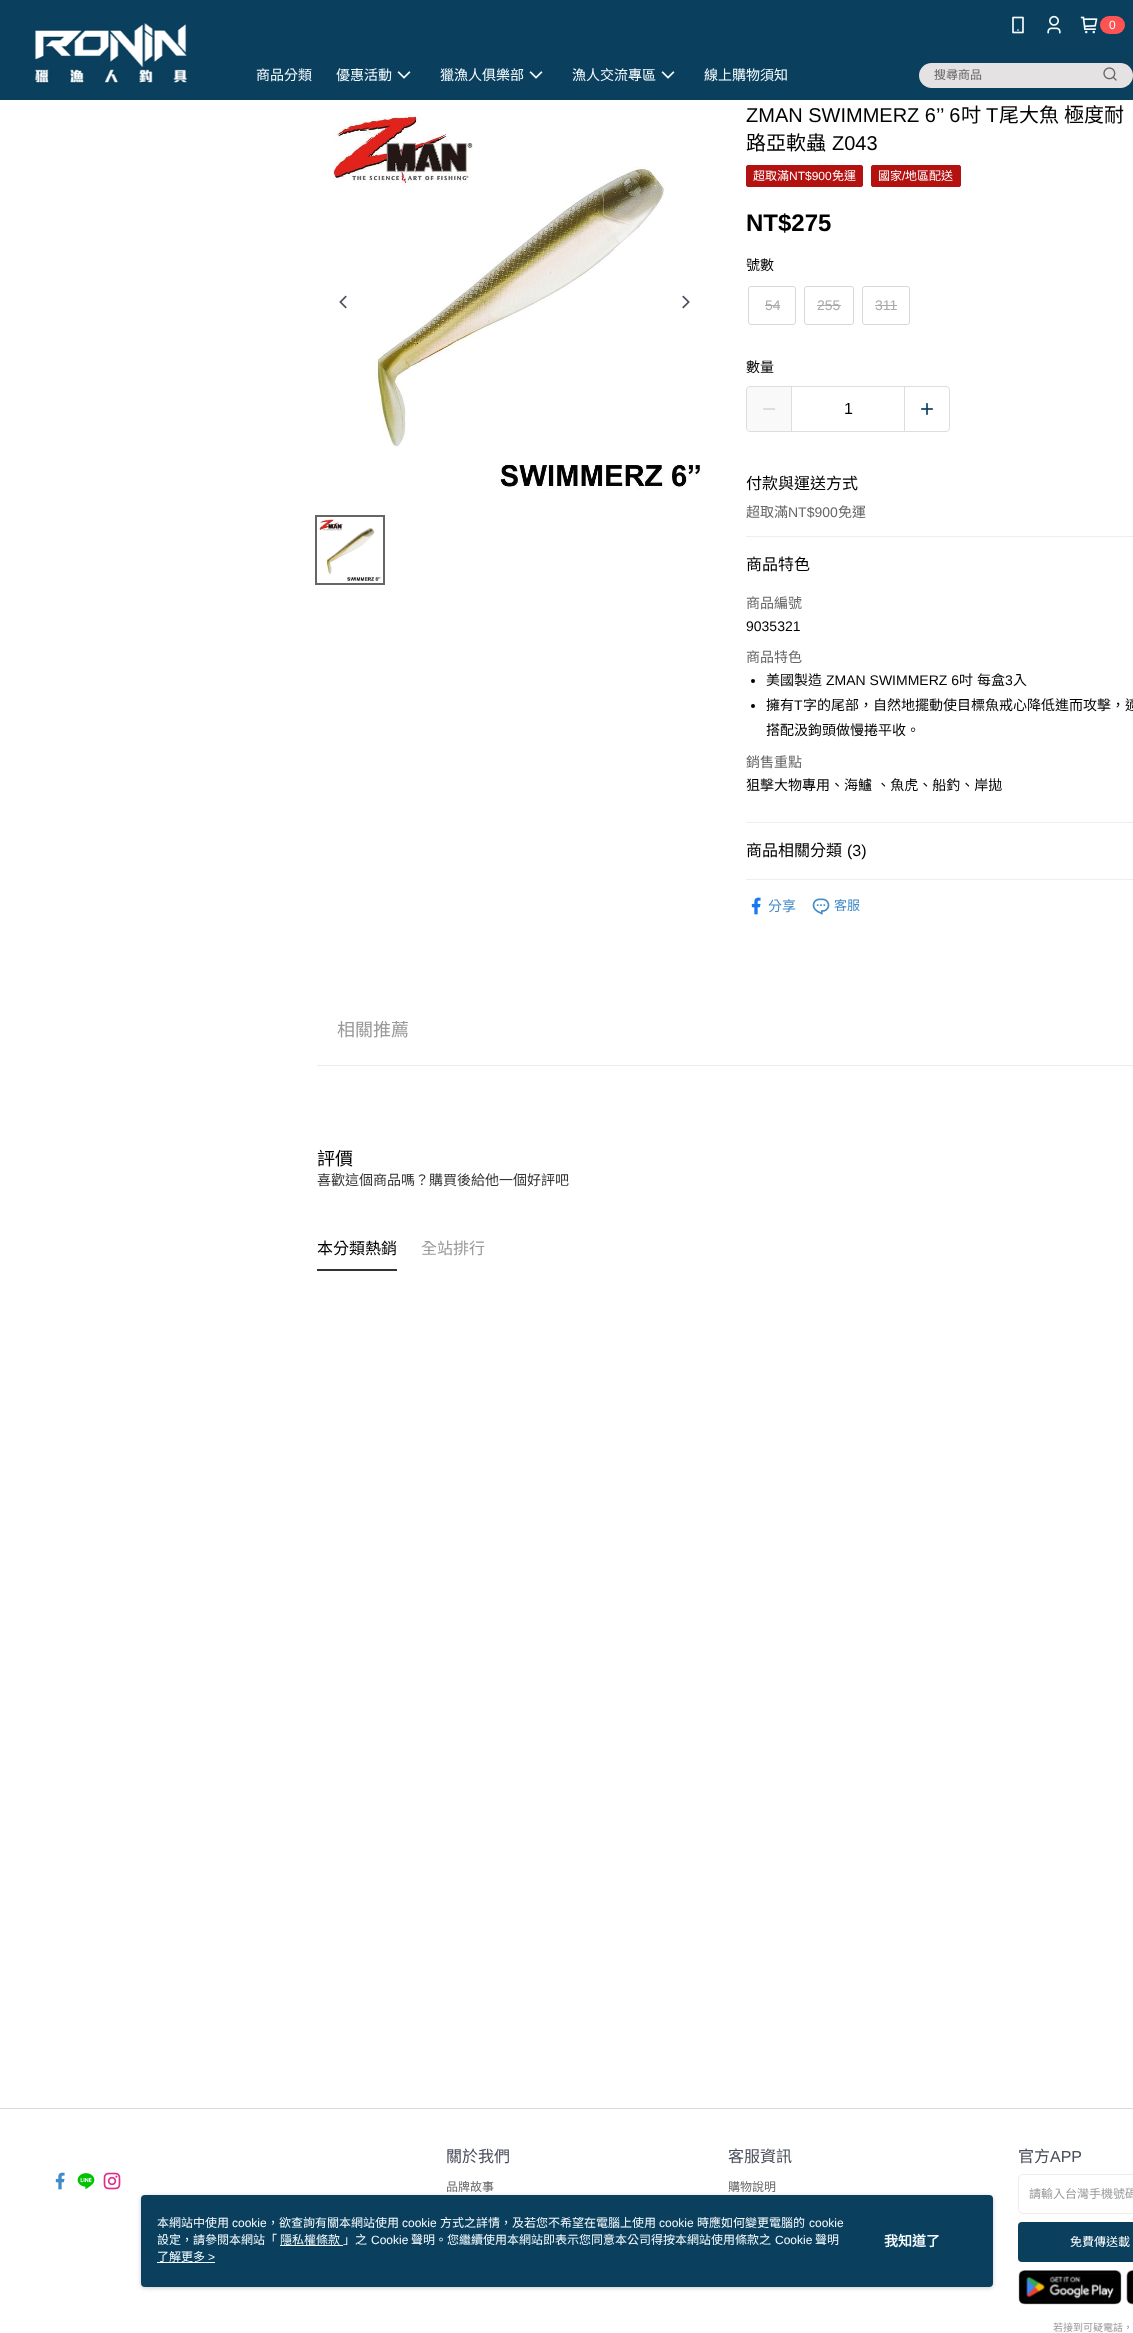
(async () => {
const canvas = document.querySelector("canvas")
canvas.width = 1133
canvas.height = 2333
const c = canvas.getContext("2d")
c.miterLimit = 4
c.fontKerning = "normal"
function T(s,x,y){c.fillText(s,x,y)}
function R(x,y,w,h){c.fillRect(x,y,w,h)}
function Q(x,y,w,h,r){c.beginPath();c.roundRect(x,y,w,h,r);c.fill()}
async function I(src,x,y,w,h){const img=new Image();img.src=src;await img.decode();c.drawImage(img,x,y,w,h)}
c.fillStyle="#fff"
R(0,0,1133,2333)
c.fillStyle="#0a405e"
R(0,0,1133,100)
await I("1.png",35,22,152,62)
await I("2.png",1012,16,12,18)
await I("3.png",1047,15,14,19)
await I("4.png",1080,16,18,18)
c.fillStyle="#ff5353"
Q(1100,16,25,18,9)
c.font="12px Liberation Sans"
c.fillStyle="#fff"
T("0",1109,29)
c.font="14px Noto Sans CJK TC"
c.fillStyle="#f5fbff"
T("商品分類",256,80)
T("優惠活動",336,80)
await I("5.png",397,71,14,8)
T("獵漁人俱樂部",440,80)
await I("5.png",529,71,14,8)
T("漁人交流專區",572,80)
await I("5.png",661,71,14,8)
T("線上購物須知",704,80)
c.fillStyle="#e4e2e2"
Q(919,63,214,25,12.5)
c.font="12px Noto Sans CJK TC"
c.fillStyle="#666"
T("搜尋商品",934,79)
await I("6.png",1103,67,14,14)
await I("7.png",333,109,368,380)
await I("8.png",339,295,8,14)
await I("9.png",682,295,8,14)
await I("10.png",319,519,62,62)
c.strokeStyle="#666"
c.lineWidth=2
c.strokeRect(316,516,68,68)
c.font="20px Liberation Sans"
c.fillStyle="#000"
T("ZMAN SWIMMERZ 6’’ 6",746,122)
c.font="20px Noto Sans CJK TC"
T("吋",961,122)
c.font="20px Liberation Sans"
T("T",986,122)
c.font="20px Noto Sans CJK TC"
T("尾大魚",999,122)
T("極度耐",1064,122)
T("路亞軟蟲",746,150)
c.font="20px Liberation Sans"
T("Z043",832,150)
c.fillStyle="#b41111"
c.beginPath()
c.roundRect(746.5,165.5,116,21,1.5)
c.fill()
c.strokeStyle="#b41111"
c.lineWidth=1
c.stroke()
c.font="12px Noto Sans CJK TC"
c.fillStyle="#fff"
T("超取滿",753,180)
c.font="12px Liberation Sans"
T("NT$900",789,180)
c.font="12px Noto Sans CJK TC"
T("免運",832,180)
c.fillStyle="#b41111"
c.beginPath()
c.roundRect(871.5,165.5,89,21,1.5)
c.fill()
c.stroke()
c.fillStyle="#fff"
T("國家",878,180)
c.font="12px Liberation Sans"
T("/",902,180)
c.font="12px Noto Sans CJK TC"
T("地區配送",905,180)
c.font="bold 24px Liberation Sans"
c.fillStyle="#000"
T("NT$275",746,231)
c.font="14px Noto Sans CJK TC"
T("號數",746,270)
c.beginPath()
c.roundRect(748.5,286.5,47,38,2.5)
c.strokeStyle="#d8d8d8"
c.stroke()
c.font="14px Liberation Sans"
c.fillStyle="#aaa"
T("54",765,310)
R(765,305,15,1)
c.beginPath()
c.roundRect(804.5,286.5,49,38,2.5)
c.stroke()
T("255",817,310)
R(817,305,24,1)
c.beginPath()
c.roundRect(862.5,286.5,47,38,2.5)
c.stroke()
T("311",875,310)
R(875,305,22,1)
c.font="14px Noto Sans CJK TC"
c.fillStyle="#000"
T("數量",746,372)
c.beginPath()
c.roundRect(746.5,386.5,203,45,3.5)
c.strokeStyle="#ddd"
c.stroke()
c.fillStyle="#f1f1f166"
R(747,387,44,44)
c.fillStyle="#ddd"
R(763,408,12,2)
R(904,387,1,44)
R(791,387,1,44)
c.font="16px Liberation Sans"
c.fillStyle="#000"
T("1",844,414)
await I("11.png",921,403,12,12)
c.fillStyle="#eceff1"
R(746,536,387,1)
c.font="16px Noto Sans CJK TC"
c.fillStyle="#000"
T("付款與運送方式",746,489)
c.font="14px Noto Sans CJK TC"
c.fillStyle="#666"
T("超取滿",746,517)
c.font="14px Liberation Sans"
T("NT$900",788,517)
c.font="14px Noto Sans CJK TC"
T("免運",838,517)
c.fillStyle="#eceff1"
R(746,822,387,1)
c.font="16px Noto Sans CJK TC"
c.fillStyle="#000"
T("商品特色",746,570)
c.font="14px Noto Sans CJK TC"
c.fillStyle="#666"
T("商品編號",746,608)
c.font="14px Liberation Sans"
c.fillStyle="#000"
T("9035321",746,631)
c.font="14px Noto Sans CJK TC"
c.fillStyle="#666"
T("商品特色",746,662)
c.fillStyle="#000"
c.beginPath()
c.arc(753,681,2,0,7)
c.fill()
T("美國製造",766,685)
c.font="14px Liberation Sans"
T("ZMAN SWIMMERZ 6",826,685)
c.font="14px Noto Sans CJK TC"
T("吋",959,685)
T("每盒",977,685)
c.font="14px Liberation Sans"
T("3",1005,685)
c.font="14px Noto Sans CJK TC"
T("入",1013,685)
c.beginPath()
c.arc(753,706,2,0,7)
c.fill()
T("擁有",766,710)
c.font="14px Liberation Sans"
T("T",794,710)
c.font="14px Noto Sans CJK TC"
T("字的尾部，自然地擺動使目標魚戒心降低進而攻擊，適",803,710)
T("搭配汲鉤頭做慢捲平收。",766,735)
c.fillStyle="#666"
T("銷售重點",746,767)
c.wordSpacing="1px"
c.fillStyle="#000"
T("狙擊大物專用、海鱸 、魚虎、船釣、岸拋",746,790)
c.fillStyle="#eceff1"
R(746,879,387,1)
c.wordSpacing="0px"
c.font="16px Noto Sans CJK TC"
c.fillStyle="#000"
T("商品相關分類",746,856)
c.font="16px Liberation Sans"
T("(3)",847,856)
await I("12.png",751,897,10,18)
c.font="14px Noto Sans CJK TC"
c.fillStyle="#428bca"
T("分享",768,911)
await I("13.png",812,898,18,17)
c.font="13px Noto Sans CJK TC"
T("客服",834,910)
c.fillStyle="#ececec"
R(317,1065,816,1)
c.font="18px Noto Sans CJK TC"
c.fillStyle="#999"
T("相關推薦",337,1036)
c.fillStyle="#000"
T("評價",317,1165)
c.font="14px Noto Sans CJK TC"
c.fillStyle="#333"
T("喜歡這個商品嗎？購買後給他一個好評吧",317,1185)
R(317,1269,80,2)
c.font="16px Noto Sans CJK TC"
c.fillStyle="#000"
T("本分類熱銷",317,1254)
c.fillStyle="#999"
T("全站排行",421,1254)
c.fillStyle="#dadada"
R(0,2108,1133,1)
await I("14.png",55,2172,10,18)
await I("15.png",77,2173,18,16)
await I("16.png",103,2172,18,18)
c.fillStyle="#4a4e5c"
T("關於我們",446,2162)
c.font="12px Noto Sans CJK TC"
c.fillStyle="#666"
T("品牌故事",446,2191)
c.font="16px Noto Sans CJK TC"
c.fillStyle="#4a4e5c"
T("客服資訊",728,2162)
c.font="12px Noto Sans CJK TC"
c.fillStyle="#666"
T("購物說明",728,2191)
c.font="16px Noto Sans CJK TC"
c.fillStyle="#4a4e5c"
T("官方",1018,2162)
c.font="16px Liberation Sans"
T("APP",1050,2162)
c.beginPath()
c.roundRect(1018.5,2174.5,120,39,4.5)
c.strokeStyle="#ededed"
c.stroke()
c.font="12px Noto Sans CJK TC"
c.fillStyle="#999"
T("請輸入台灣手機號碼",1029,2198)
c.fillStyle="#0a405e"
Q(1018,2222,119,40,4)
c.fillStyle="#fff"
T("免費傳送載",1070,2246)
await I("17.png",1018,2270,104,35)
await I("18.png",1126,2270,7,35)
c.font="10px Noto Sans CJK TC"
c.fillStyle="#999"
T("若接到可疑電話，",1053,2331)
c.fillStyle="#97979780"
c.filter="blur(2px)"
c.beginPath()
c.roundRect(141,2196,852,92,4)
c.fill()
c.filter="none"
c.fillStyle="#0a405e"
Q(141,2195,852,92,4)
c.font="12px Noto Sans CJK TC"
c.fillStyle="#f5fbff"
T("本網站中使用",157,2227)
c.font="12px Liberation Sans"
T("cookie",232,2227)
c.font="12px Noto Sans CJK TC"
T("，欲查詢有關本網站使用",267,2227)
c.font="12px Liberation Sans"
T("cookie",402,2227)
c.font="12px Noto Sans CJK TC"
T("方式之詳情，及若您不希望在電腦上使用",440,2227)
c.font="12px Liberation Sans"
T("cookie",659,2227)
c.font="12px Noto Sans CJK TC"
T("時應如何變更電腦的",697,2227)
c.font="12px Liberation Sans"
T("cookie",809,2227)
c.font="12px Noto Sans CJK TC"
T("設定，請參閱本網站「",157,2244)
T("隱私權條款",280,2244)
R(280,2245,63,1)
T("」之",343,2244)
c.font="12px Liberation Sans"
T("Cookie",371,2244)
c.font="12px Noto Sans CJK TC"
T("聲明。您繼續使用本網站即表示您同意本公司得按本網站使用條款之",411,2244)
c.font="12px Liberation Sans"
T("Cookie",775,2244)
c.font="12px Noto Sans CJK TC"
T("聲明",815,2244)
T("了解更多",157,2261)
c.font="12px Liberation Sans"
T(">",208,2261)
R(157,2262,58,1)
c.font="bold 14px Noto Sans CJK TC"
T("我知道了",884,2246)
})()
